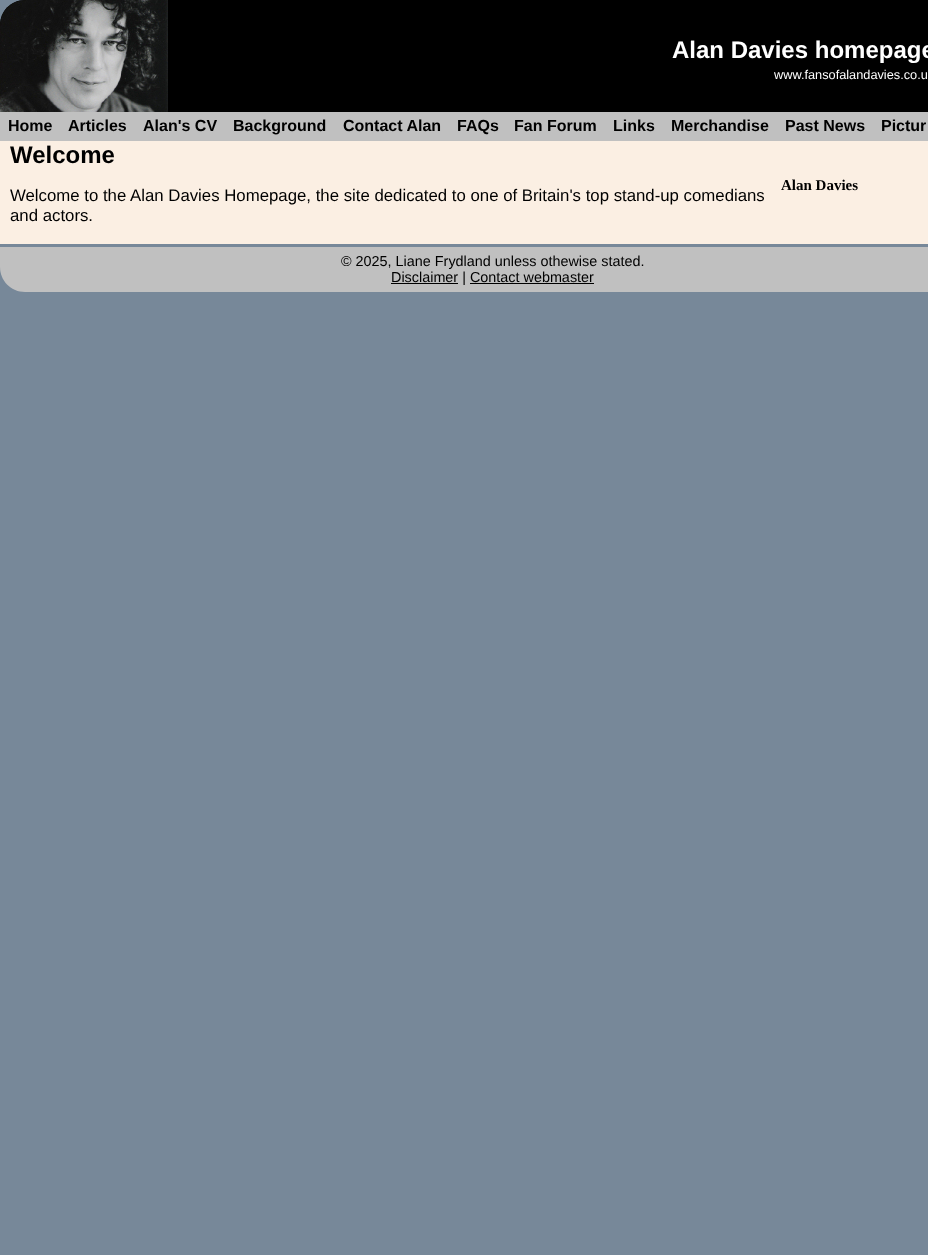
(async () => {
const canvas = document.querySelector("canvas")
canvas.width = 928
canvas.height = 1255
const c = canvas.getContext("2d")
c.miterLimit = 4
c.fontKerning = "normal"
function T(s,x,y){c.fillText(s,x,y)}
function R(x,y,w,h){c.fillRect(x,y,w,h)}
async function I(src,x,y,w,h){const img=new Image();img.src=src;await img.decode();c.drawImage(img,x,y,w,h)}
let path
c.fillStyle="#789"
R(0,0,928,1255)
c.fillStyle="#000"
path = new Path2D("M25 0h903c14 0 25 11 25 25v87h-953v-87c0-14 11-25 25-25z")
c.fill(path)
await I("1.png",0,0,168,112)
c.font="bold 24px Liberation Sans"
c.fillStyle="#fff"
T("Alan Davies homepage",672,58)
c.font="12.75px Liberation Sans"
T("www.fansofalandavies.co.u",774,79)
c.fillStyle="#fbefe3"
R(0,141,928,103)
c.fillStyle="#c0c0c0"
R(0,112,928,29)
c.font="bold 16px Liberation Sans"
c.fillStyle="#000"
T("Home",8,131)
T("Articles",68,131)
T("Alan's CV",143,131)
T("Background",233,131)
T("Contact Alan",343,131)
T("FAQs",457,131)
T("Fan Forum",514,131)
T("Links",613,131)
T("Merchandise",671,131)
T("Past News",785,131)
T("Pictur",881,131)
c.font="bold 24px Liberation Sans"
T("Welcome",10,163)
c.font="16.8px Liberation Sans"
T("Welcome to the Alan Davies Homepage, the site dedicated to one of Britain's top stand-up comedians",10,201)
T("and actors.",10,221)
c.font="bold 15px Liberation Serif"
T("Alan Davies",781,190)
c.fillStyle="#c0c0c0"
path = new Path2D("M0 244h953v23c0 14-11 25-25 25h-903c-14 0-25-11-25-25z")
c.fill(path)
c.fillStyle="#789"
R(0,244,928,3)
c.font="14.4px Liberation Sans"
c.fillStyle="#000"
T("© 2025, Liane Frydland unless othewise stated.",341,266)
R(391,283,67,1)
T("Disclaimer | Contact webmaster",391,282)
R(470,283,124,1)
})()
